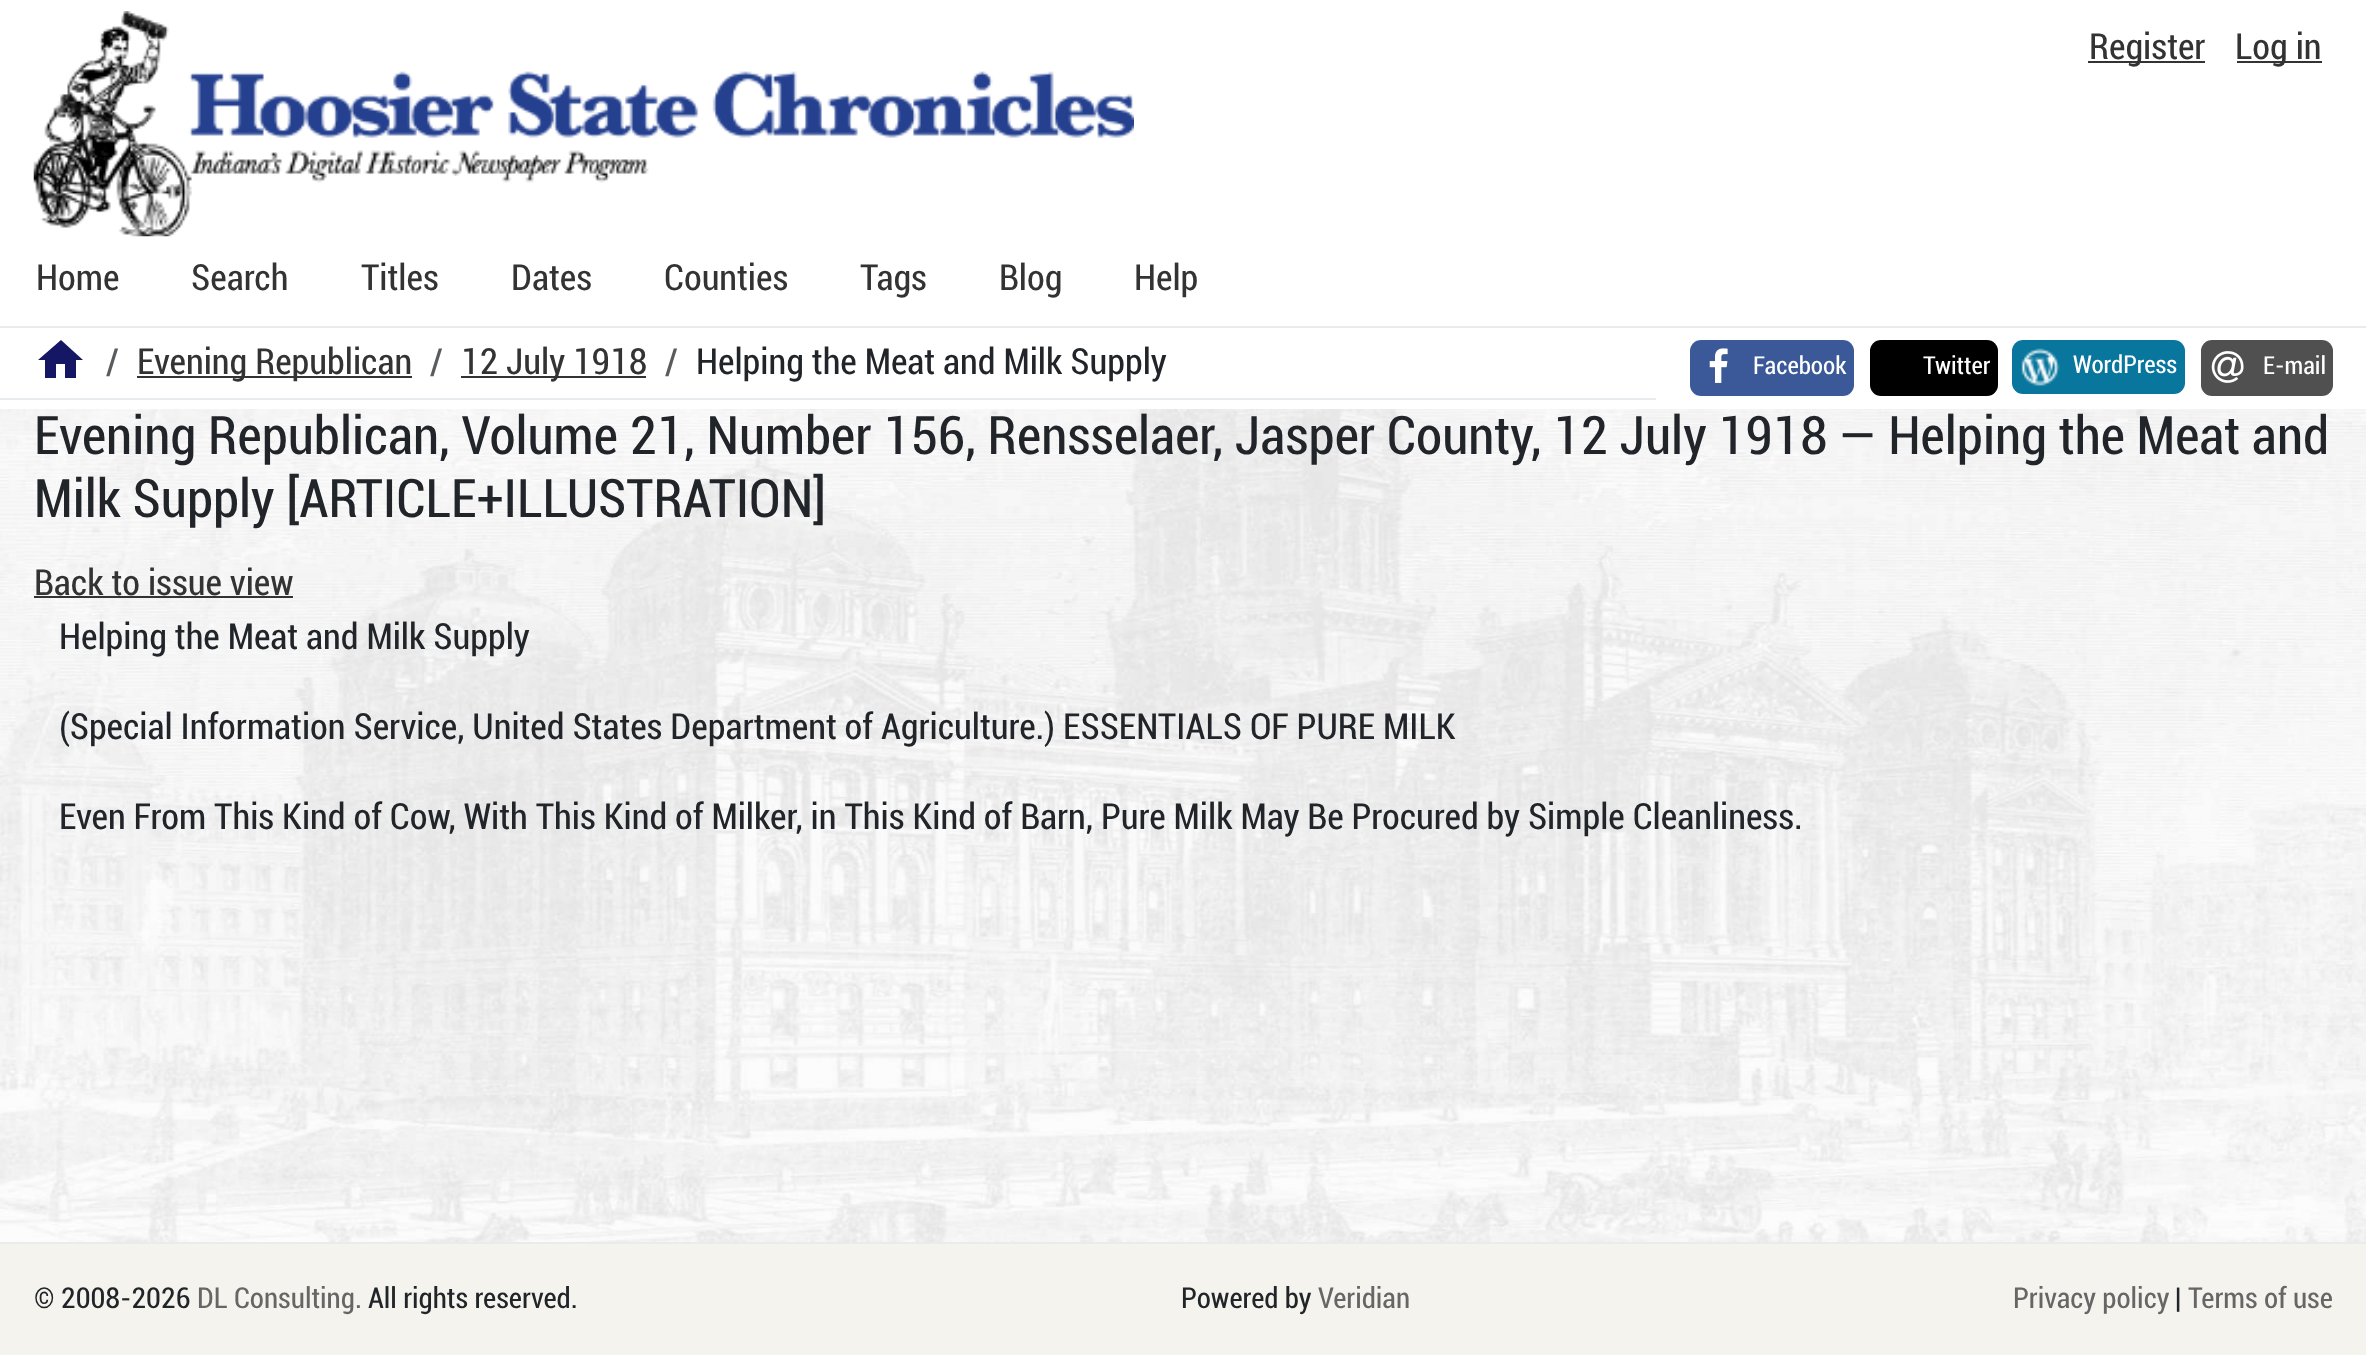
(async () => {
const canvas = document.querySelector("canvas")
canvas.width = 2366
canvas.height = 1355
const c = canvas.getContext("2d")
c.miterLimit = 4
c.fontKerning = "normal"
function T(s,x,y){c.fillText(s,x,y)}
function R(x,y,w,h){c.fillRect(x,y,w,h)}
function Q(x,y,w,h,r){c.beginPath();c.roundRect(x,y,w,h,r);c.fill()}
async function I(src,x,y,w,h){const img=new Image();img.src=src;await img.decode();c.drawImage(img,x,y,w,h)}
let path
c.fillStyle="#fff"
R(0,0,2366,1355)
c.fillStyle="#333"
R(2088,61,117,2)
c.font="36px Roboto"
T("Register",2089,59)
R(2237,61,85,2)
T("Log in",2235,59)
c.fillStyle="#e9ecef"
R(0,326,2366,2)
await I("1.png",33,11,1101,226)
c.fillStyle="#333"
T("Home",36,290)
T("Search",191,290)
T("Titles",361,290)
T("Dates",511,290)
T("Counties",664,290)
T("Tags",860,290)
T("Blog",999,290)
T("Help",1134,290)
c.fillStyle="#e9ecef"
R(0,398,1656,2)
c.fillStyle="#151764"
path = new Path2D("M56 378v-14h9v14h11v-18h7l-22-20l-23 20h7v18z")
c.fill(path)
c.fillStyle="#595c5f"
T("/",106,374)
c.fillStyle="#333"
R(137,376,275,2)
T("Evening Republican",137,374)
c.fillStyle="#595c5f"
T("/",430,374)
c.fillStyle="#333"
R(461,376,185,2)
T("12 July 1918",461,374)
c.fillStyle="#595c5f"
T("/",665,374)
c.fillStyle="#212529"
T("Helping the Meat and Milk Supply",696,374)
c.fillStyle="#3b5998"
Q(1690,340,164,56,11)
await I("2.png",1709,348,19,35)
c.font="24.75px Roboto"
c.fillStyle="#fff"
T("Facebook",1753,374)
c.fillStyle="#000"
Q(1870,340,128,56,11)
c.fillStyle="#fff"
T("Twitter",1923,374)
c.fillStyle="#09769d"
Q(2012,340,173,54,11)
await I("3.png",2021,348,39,38)
c.fillStyle="#fff"
T("WordPress",2073,373)
c.fillStyle="#505050"
Q(2201,340,132,56,11)
await I("4.png",2211,351,33,32)
c.fillStyle="#fff"
T("E-mail",2263,374)
await I("5.png",0,409,2366,833)
c.font="53px Roboto"
c.fillStyle="#212529"
T("Evening Republican, Volume 21, Number 156, Rensselaer, Jasper County, 12 July 1918 — Helping the Meat and",34,454)
T("Milk Supply [ARTICLE+ILLUSTRATION]",34,517)
c.font="36px Roboto"
c.fillStyle="#333"
T("Back to issue view",34,595)
R(34,596,259,2)
c.fillStyle="#212529"
T("Helping the Meat and Milk Supply",59,649)
T("(Special Information Service, United States Department of Agriculture.) ESSENTIALS OF PURE MILK",59,739)
T("Even From This Kind of Cow, With This Kind of Milker, in This Kind of Barn, Pure Milk May Be Procured by Simple Cleanliness.",59,829)
c.fillStyle="#f5f3ed"
R(0,1244,2366,111)
c.fillStyle="#e9ecef"
R(0,1242,2366,2)
c.font="28.75px Roboto"
c.fillStyle="#212529"
T("© 2008-2026",34,1308)
c.fillStyle="#666"
T("DL Consulting.",197,1308)
c.fillStyle="#212529"
T("All rights reserved.",368,1308)
T("Powered by",1181,1308)
c.fillStyle="#666"
T("Veridian",1318,1308)
T("Privacy policy",2013,1308)
c.fillStyle="#212529"
T("|",2175,1308)
c.fillStyle="#666"
T("Terms of use",2188,1308)
})()
